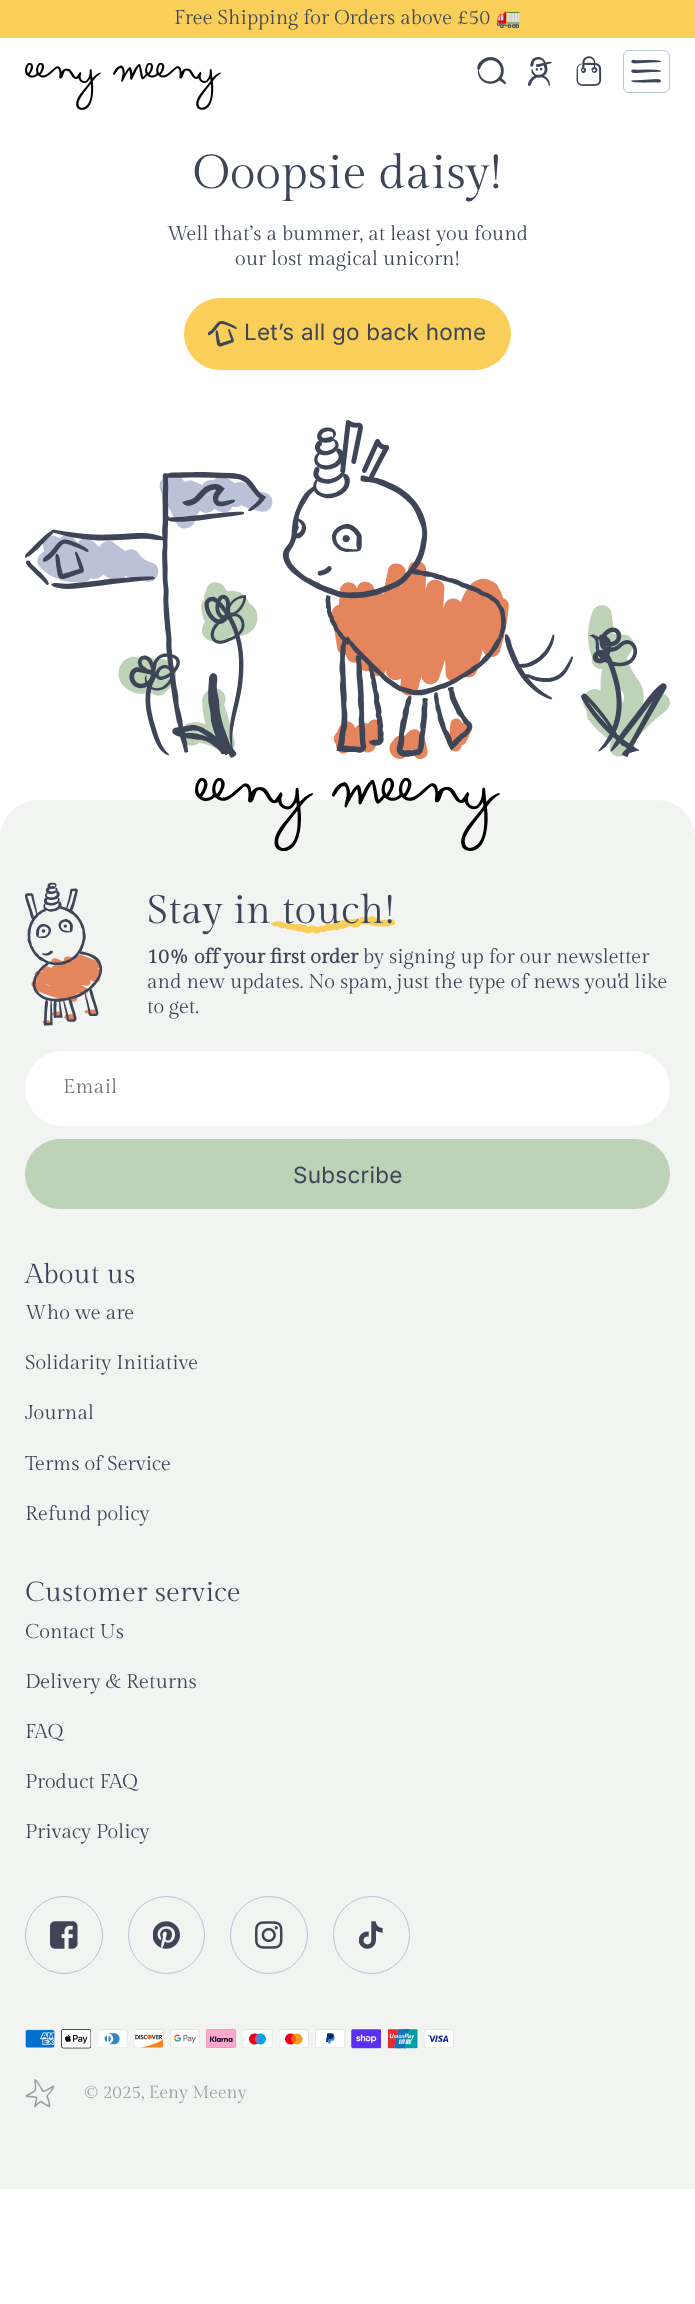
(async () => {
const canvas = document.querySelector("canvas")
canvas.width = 695
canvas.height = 2304
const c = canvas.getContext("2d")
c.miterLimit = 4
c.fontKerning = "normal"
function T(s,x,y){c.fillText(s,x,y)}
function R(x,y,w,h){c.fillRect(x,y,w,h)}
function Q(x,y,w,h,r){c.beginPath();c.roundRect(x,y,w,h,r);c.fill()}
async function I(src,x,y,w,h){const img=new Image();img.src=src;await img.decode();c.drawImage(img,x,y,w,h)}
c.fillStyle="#fff"
R(0,0,695,2304)
c.fillStyle="#f9cf59"
R(0,0,695,38)
c.font="20px Gilda Display"
c.fillStyle="#3e4557"
T("Free Shipping for Orders above £50",174,24)
c.font="20px Noto Color Emoji"
T("🚛",496,24)
await I("1.png",25,63,196,47)
await I("2.png",477,57,29,28)
await I("3.png",528,56,24,30)
await I("4.png",576,56,26,30)
c.beginPath()
c.roundRect(623.5,50.5,46,42,5.5)
c.strokeStyle="#bbc1d7"
c.stroke()
await I("5.png",631,59,30,24)
c.letterSpacing="0.25px"
c.font="47.5px Gilda Display"
T("Ooopsie daisy!",193,188)
c.letterSpacing="0px"
c.font="20px Gilda Display"
T("Well that’s a bummer, at least you found",167,240)
T("our lost magical unicorn!",235,265)
c.fillStyle="#f9cf59"
c.beginPath()
c.roundRect(184.5,298.5,326,71,35.5)
c.fill()
c.strokeStyle="#f9cf59"
c.stroke()
await I("6.png",208,321,29,26)
c.letterSpacing="0.25px"
c.font="22.5px Inter"
c.fillStyle="#3e4557"
T("Let’s all go back home",244,340)
await I("7.png",25,420,645,340)
c.fillStyle="#f1f4f1"
c.beginPath()
c.roundRect(0,800,695,1389,[38,38,0,0])
c.fill()
await I("8.png",195,778,305,73)
await I("9.png",25,882,78,144)
await I("10.png",271,916,124,18)
c.font="40px Gilda Display"
c.fillStyle="#3e4557"
T("Stay in touch!",147,923)
c.letterSpacing="0px"
c.font="bold 20px Gilda Display"
T("10% off your first order",147,963)
c.font="20px Gilda Display"
T("by signing up for our newsletter",363,963)
T("and new updates. No spam, just the type of news you'd like",147,988)
T("to get.",147,1013)
c.fillStyle="#fff"
Q(25,1051,645,75,37.5)
c.letterSpacing="0.25px"
c.fillStyle="#757575"
T("Email",63,1093)
c.fillStyle="#bdd2b7"
c.beginPath()
c.roundRect(25.5,1139.5,644,69,34.5)
c.fill()
c.strokeStyle="#bdd2b7"
c.stroke()
c.font="22.5px Inter"
c.fillStyle="#3e4557"
T("Subscribe",293,1183)
c.letterSpacing="0.2px"
c.font="27.5px Gilda Display"
T("About us",25,1283)
c.letterSpacing="0px"
c.font="20px Gilda Display"
T("Who we are",25,1319)
T("Solidarity Initiative",25,1369)
T("Journal",25,1419)
T("Terms of Service",25,1470)
T("Refund policy",25,1520)
c.letterSpacing="0.2px"
c.font="27.5px Gilda Display"
T("Customer service",25,1601)
c.letterSpacing="0px"
c.font="20px Gilda Display"
T("Contact Us",25,1638)
T("Delivery & Returns",25,1688)
T("FAQ",25,1738)
T("Product FAQ",25,1788)
T("Privacy Policy",25,1838)
c.beginPath()
c.arc(64,1935,38.5,0,7)
c.strokeStyle="#bbc1d7"
c.stroke()
await I("11.png",50,1921,28,28)
c.beginPath()
c.roundRect(128.5,1896.5,76,77,38)
c.stroke()
await I("12.png",153,1921,27,28)
c.beginPath()
c.arc(269,1935,38.5,0,7)
c.stroke()
await I("13.png",255,1921,28,28)
c.beginPath()
c.roundRect(333.5,1896.5,76,77,38)
c.stroke()
await I("14.png",359,1921,24,28)
await I("15.png",25,2029,30,19)
await I("16.png",61,2029,30,20)
await I("17.png",98,2029,30,19)
await I("18.png",134,2029,30,19)
await I("19.png",170,2029,30,19)
await I("20.png",206,2029,30,19)
await I("21.png",243,2029,30,19)
await I("22.png",279,2029,30,19)
await I("23.png",315,2029,30,19)
await I("24.png",351,2029,30,20)
await I("25.png",388,2029,30,20)
await I("26.png",424,2029,30,19)
await I("27.png",25,2079,30,29)
c.font="17.5px Gilda Display"
c.fillStyle="#989da4"
T("© 2025, Eeny Meeny",84,2098)
})()
